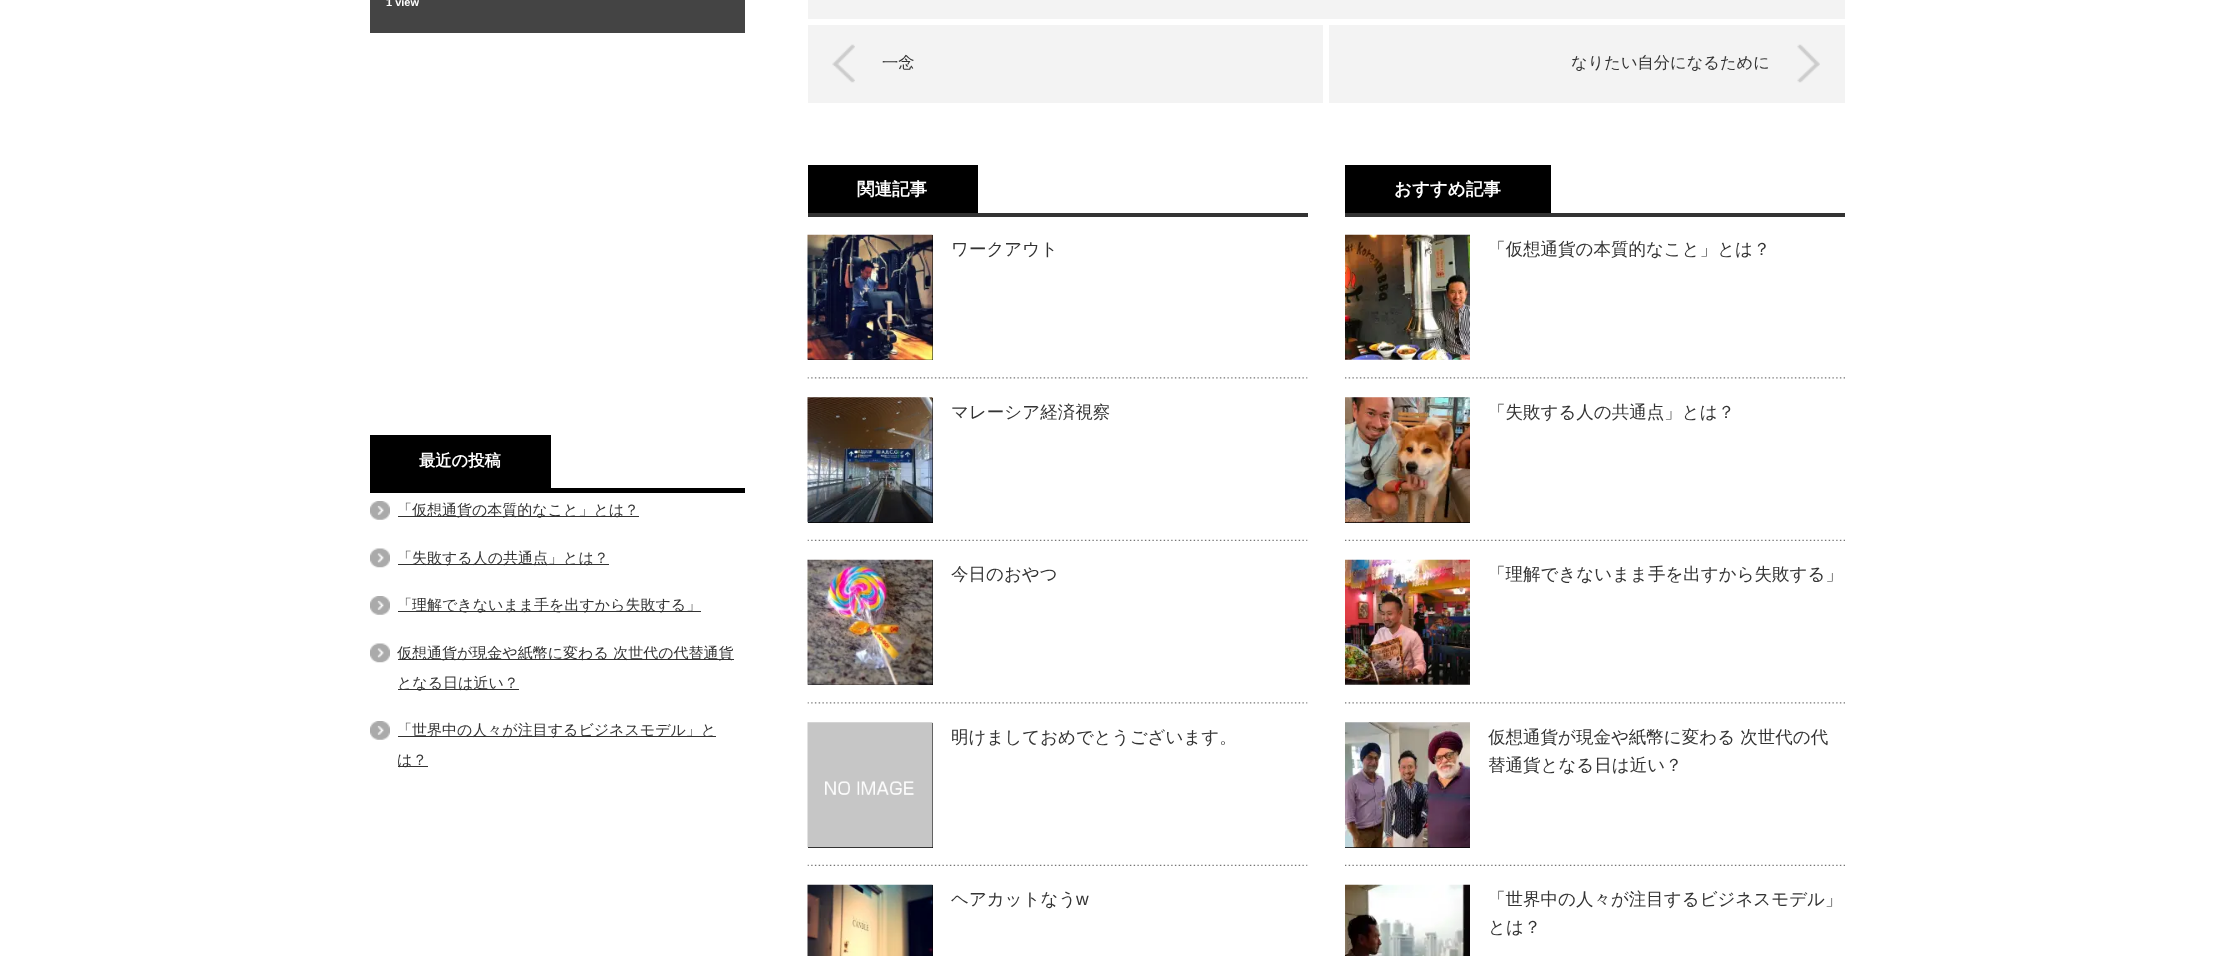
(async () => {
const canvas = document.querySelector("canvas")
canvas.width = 2213
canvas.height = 956
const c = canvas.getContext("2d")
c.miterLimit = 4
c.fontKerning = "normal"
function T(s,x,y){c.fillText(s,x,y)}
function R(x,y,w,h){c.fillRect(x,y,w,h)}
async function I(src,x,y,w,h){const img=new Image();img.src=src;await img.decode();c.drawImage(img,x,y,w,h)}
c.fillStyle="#fff"
R(0,0,2213,956)
c.fillStyle="#444"
R(370,0,375,33)
c.font="bold 11px Liberation Sans"
c.fillStyle="#fff"
T("1 view",386,6)
c.fillStyle="#000"
R(370,488,375,5)
R(370,435,181,53)
c.font="bold 16.25px WenQuanYi Zen Hei"
c.fillStyle="#fff"
T("最近の投稿",419,466)
await I("1.png",370,501,20,19)
c.fillStyle="#333"
R(398,516,241,1)
c.font="500 15px WenQuanYi Zen Hei"
T("「仮想通貨の本質的なこと」とは？",397,515)
await I("2.png",370,548,20,20)
R(398,564,211,1)
T("「失敗する人の共通点」とは？",397,563)
await I("3.png",370,596,20,19)
R(398,611,303,1)
T("「理解できないまま手を出すから失敗する」",397,610)
await I("2.png",370,643,20,20)
R(398,659,336,1)
T("仮想通貨が現金や紙幣に変わる 次世代の代替通貨",397,658)
R(398,689,121,1)
T("となる日は近い？",397,688)
await I("3.png",370,721,20,19)
R(398,736,318,1)
T("「世界中の人々が注目するビジネスモデル」と",397,735)
R(398,766,30,1)
T("は？",397,765)
c.fillStyle="#f3f3f3"
R(808,0,1037,19)
R(808,25,515,78)
await I("4.png",832,44,23,39)
c.font="500 16.25px WenQuanYi Zen Hei"
c.fillStyle="#333"
T("一念",882,68)
c.fillStyle="#f3f3f3"
R(1329,25,516,78)
await I("5.png",1797,44,23,39)
c.fillStyle="#333"
T("なりたい自分になるために",1571,68)
c.fillStyle="#000"
R(808,165,170,48)
c.font="bold 17.5px WenQuanYi Zen Hei"
c.fillStyle="#fff"
T("関連記事",857,195)
c.fillStyle="#333"
R(808,213,500,4)
await I("6.png",807,377,501,2)
c.fillStyle="#000"
R(808,235,125,125)
await I("7.png",807,234,126,126)
c.font="500 17.5px WenQuanYi Zen Hei"
c.fillStyle="#333"
T("ワークアウト",951,255)
await I("8.png",807,539,501,2)
c.fillStyle="#000"
R(808,398,125,125)
await I("9.png",807,397,126,126)
c.fillStyle="#333"
T("マレーシア経済視察",951,418)
await I("6.png",807,702,501,2)
c.fillStyle="#000"
R(808,560,125,125)
await I("10.png",807,559,126,126)
c.fillStyle="#333"
T("今日のおやつ",951,580)
await I("11.png",807,864,501,2)
c.fillStyle="#000"
R(808,723,125,125)
await I("12.png",807,722,126,126)
c.fillStyle="#333"
T("明けましておめでとうございます。",951,743)
c.fillStyle="#000"
R(932,885,1,71)
await I("13.png",807,884,126,72)
c.fillStyle="#333"
T("ヘアカットなう",951,905)
c.font="17.5px Liberation Sans"
T("w",1076,905)
c.fillStyle="#000"
R(1345,165,206,48)
c.font="bold 17.5px WenQuanYi Zen Hei"
c.fillStyle="#fff"
T("おすすめ記事",1394,195)
c.fillStyle="#333"
R(1345,213,500,4)
await I("14.png",1345,377,500,2)
await I("15.png",1345,234,125,126)
c.font="500 17.5px WenQuanYi Zen Hei"
T("「仮想通貨の本質的なこと」とは？",1488,255)
await I("16.png",1345,539,500,2)
c.fillStyle="#000"
R(1345,522,125,1)
await I("17.png",1345,397,125,126)
c.fillStyle="#333"
T("「失敗する人の共通点」とは？",1488,418)
await I("14.png",1345,702,500,2)
await I("18.png",1345,559,125,126)
T("「理解できないまま手を出すから失敗する」",1488,580)
await I("19.png",1345,864,500,2)
c.fillStyle="#000"
R(1345,847,125,1)
await I("20.png",1345,722,125,126)
c.fillStyle="#333"
T("仮想通貨が現金や紙幣に変わる 次世代の代",1488,743)
T("替通貨となる日は近い？",1488,771)
await I("21.png",1345,884,125,72)
T("「世界中の人々が注目するビジネスモデル」",1488,905)
T("とは？",1488,933)
})()
